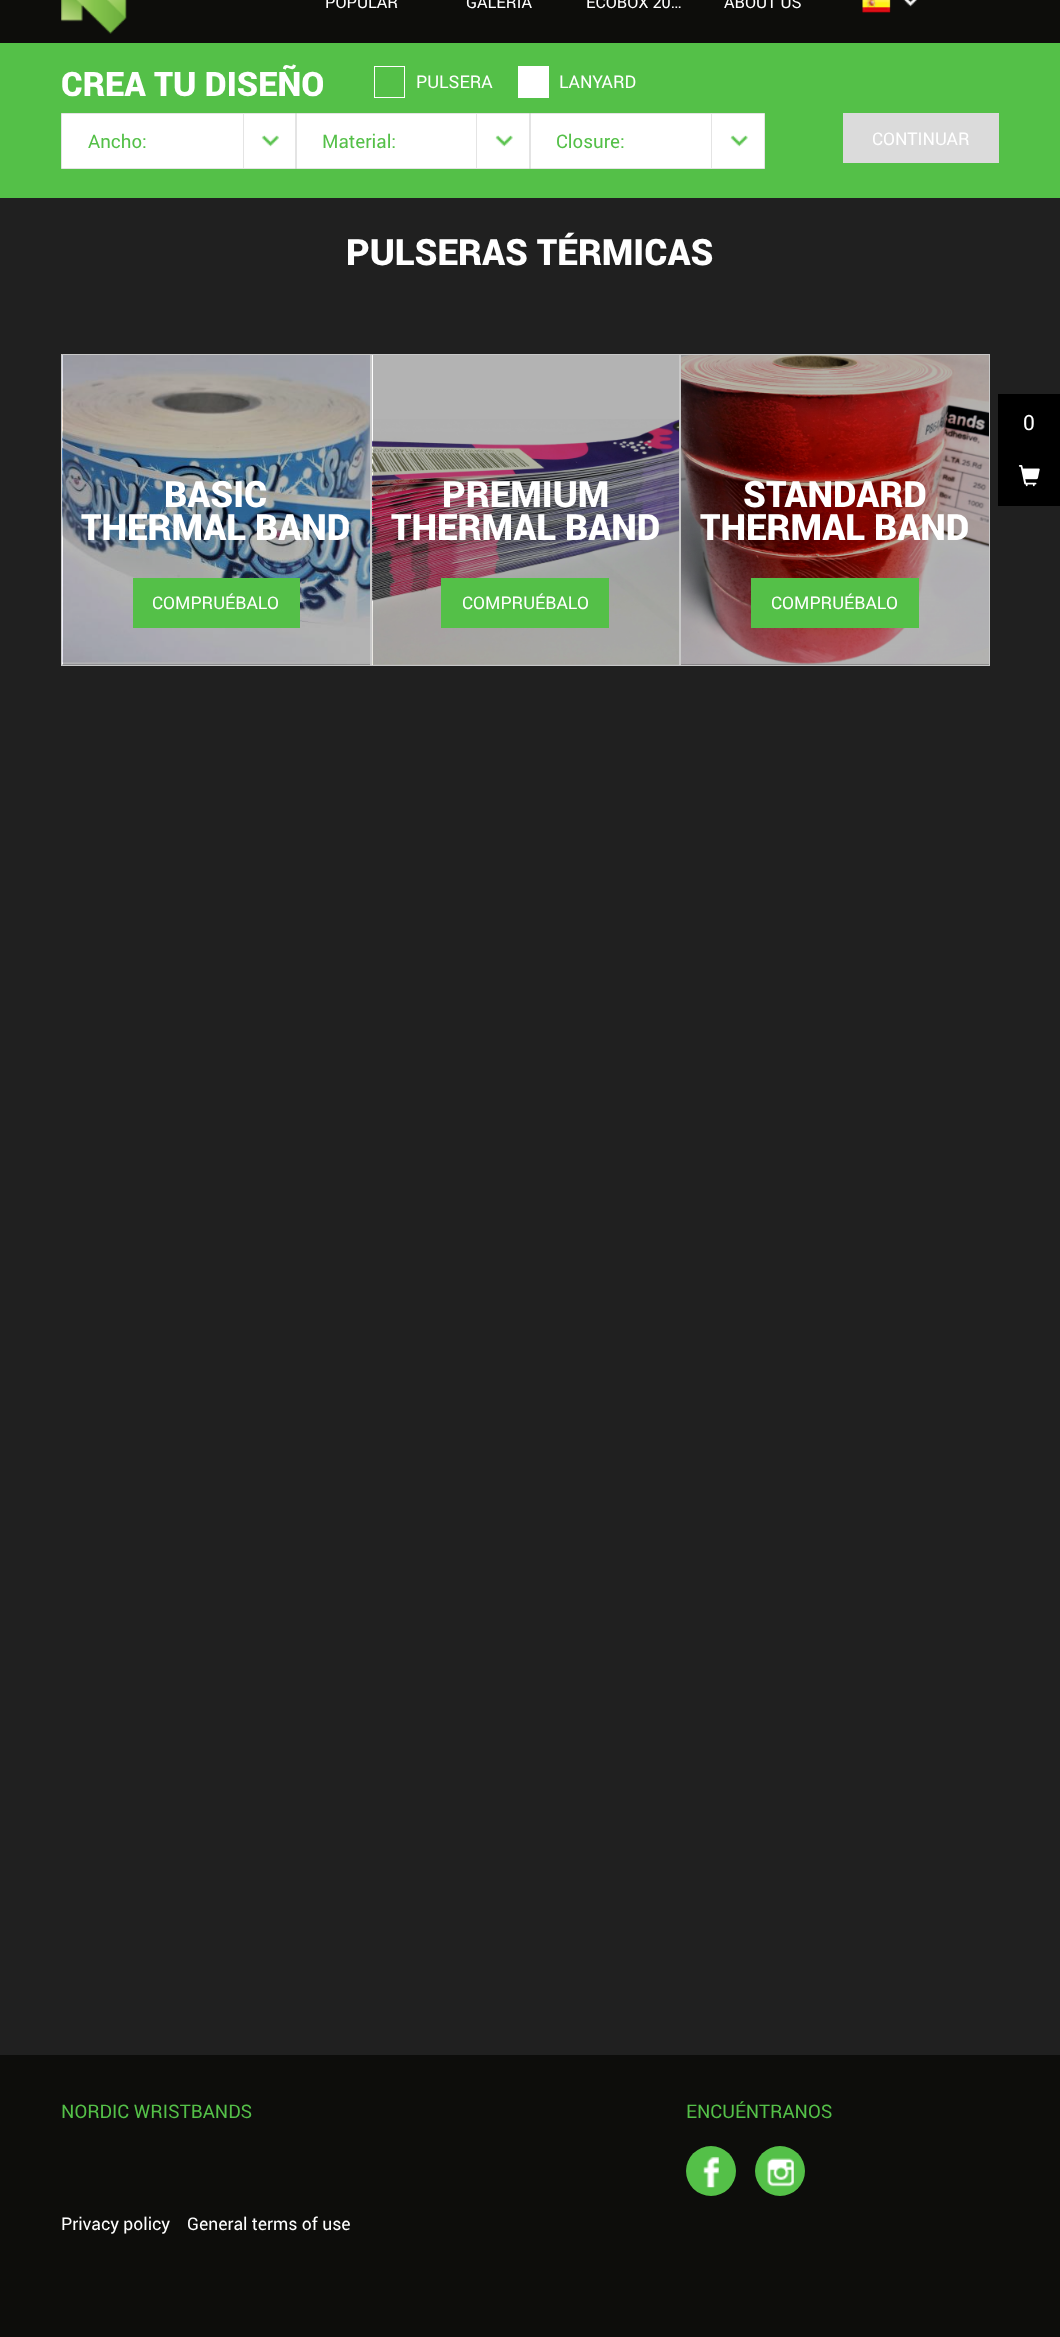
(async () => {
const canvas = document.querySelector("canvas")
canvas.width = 1060
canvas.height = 2337
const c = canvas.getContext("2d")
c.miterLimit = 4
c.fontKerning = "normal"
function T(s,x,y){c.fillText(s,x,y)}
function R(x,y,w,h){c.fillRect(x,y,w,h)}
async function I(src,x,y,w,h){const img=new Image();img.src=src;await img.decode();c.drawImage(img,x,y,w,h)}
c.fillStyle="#202020"
R(0,0,1060,2337)
c.fillStyle="#0d0d0b"
R(0,0,1060,43)
await I("1.png",61,0,66,34)
c.font="16.25px Roboto"
c.fillStyle="#fff"
T("POPULAR",325,8)
T("GALERÍA",466,8)
T("ECOBOX 20…",586,8)
T("ABOUT US",724,8)
await I("2.png",862,0,29,13)
await I("3.png",903,0,14,7)
c.fillStyle="#54c048"
R(0,43,1060,155)
c.font="900 33.75px Roboto"
c.fillStyle="#fff"
T("CREA TU DISEÑO",61,96)
c.strokeStyle="#fff"
c.strokeRect(374.5,66.5,30,31)
c.font="17.5px Roboto"
T("PULSERA",416,88)
R(518,66,31,32)
T("LANYARD",559,88)
c.beginPath()
c.rect(61.5,113.5,234,55)
c.fill()
c.strokeStyle="#e4e4e4"
c.stroke()
c.font="18.75px Roboto"
c.fillStyle="#54c048"
T("Ancho:",88,148)
c.fillStyle="#e4e4e4"
R(243,114,1,54)
await I("4.png",261,135,18,12)
c.fillStyle="#fff"
c.beginPath()
c.rect(296.5,113.5,233,55)
c.fill()
c.stroke()
c.fillStyle="#54c048"
T("Material:",322,148)
c.fillStyle="#e4e4e4"
R(476,114,1,54)
await I("5.png",495,135,18,12)
c.fillStyle="#fff"
c.beginPath()
c.rect(530.5,113.5,234,55)
c.fill()
c.stroke()
c.fillStyle="#54c048"
T("Closure:",556,148)
c.fillStyle="#e4e4e4"
R(711,114,1,54)
await I("5.png",730,135,18,12)
c.fillStyle="#dbdbdb"
R(843,113,156,50)
c.font="17.5px Roboto"
c.fillStyle="#fff"
T("CONTINUAR",872,145)
c.font="900 36.25px Roboto"
T("PULSERAS TÉRMICAS",346,265)
await I("6.png",62,355,308,310)
c.strokeStyle="#c8c8c8"
c.strokeRect(61.5,354.5,309,311)
T("BASIC",164,507)
T("THERMAL BAND",81,540)
c.fillStyle="#54c048"
R(133,578,167,50)
c.font="17.5px Roboto"
c.fillStyle="#fff"
T("COMPRUÉBALO",152,609)
R(372,355,1,310)
c.fillStyle="#b3b3b3"
R(373,355,306,310)
await I("7.png",372,419,307,246)
c.strokeRect(371.5,354.5,308,311)
c.font="900 36.25px Roboto"
c.fillStyle="#fff"
T("PREMIUM",442,507)
T("THERMAL BAND",391,540)
c.fillStyle="#54c048"
R(441,578,168,50)
c.font="17.5px Roboto"
c.fillStyle="#fff"
T("COMPRUÉBALO",462,609)
await I("8.png",681,355,308,310)
c.strokeRect(680.5,354.5,309,311)
c.font="900 36.25px Roboto"
T("STANDARD",743,507)
T("THERMAL BAND",700,540)
c.fillStyle="#54c048"
R(751,578,168,50)
c.font="17.5px Roboto"
c.fillStyle="#fff"
T("COMPRUÉBALO",771,609)
c.fillStyle="#000"
R(998,394,62,112)
c.font="21px Roboto"
c.fillStyle="#fff"
T("0",1023,430)
await I("9.png",1018,465,22,22)
c.fillStyle="#0d0d0b"
R(0,2055,1060,282)
c.font="18.75px Roboto"
c.fillStyle="#54c048"
T("NORDIC WRISTBANDS",61,2118)
T("ENCUÉNTRANOS",686,2118)
c.beginPath()
c.arc(711,2171,25,0,7)
c.fill()
await I("10.png",703,2157,16,31)
c.beginPath()
c.arc(780,2171,25,0,7)
c.fill()
await I("11.png",767,2158,27,29)
c.font="17.5px Roboto"
c.fillStyle="#fff"
T("Privacy policy",61,2230)
T("General terms of use",187,2230)
})()
